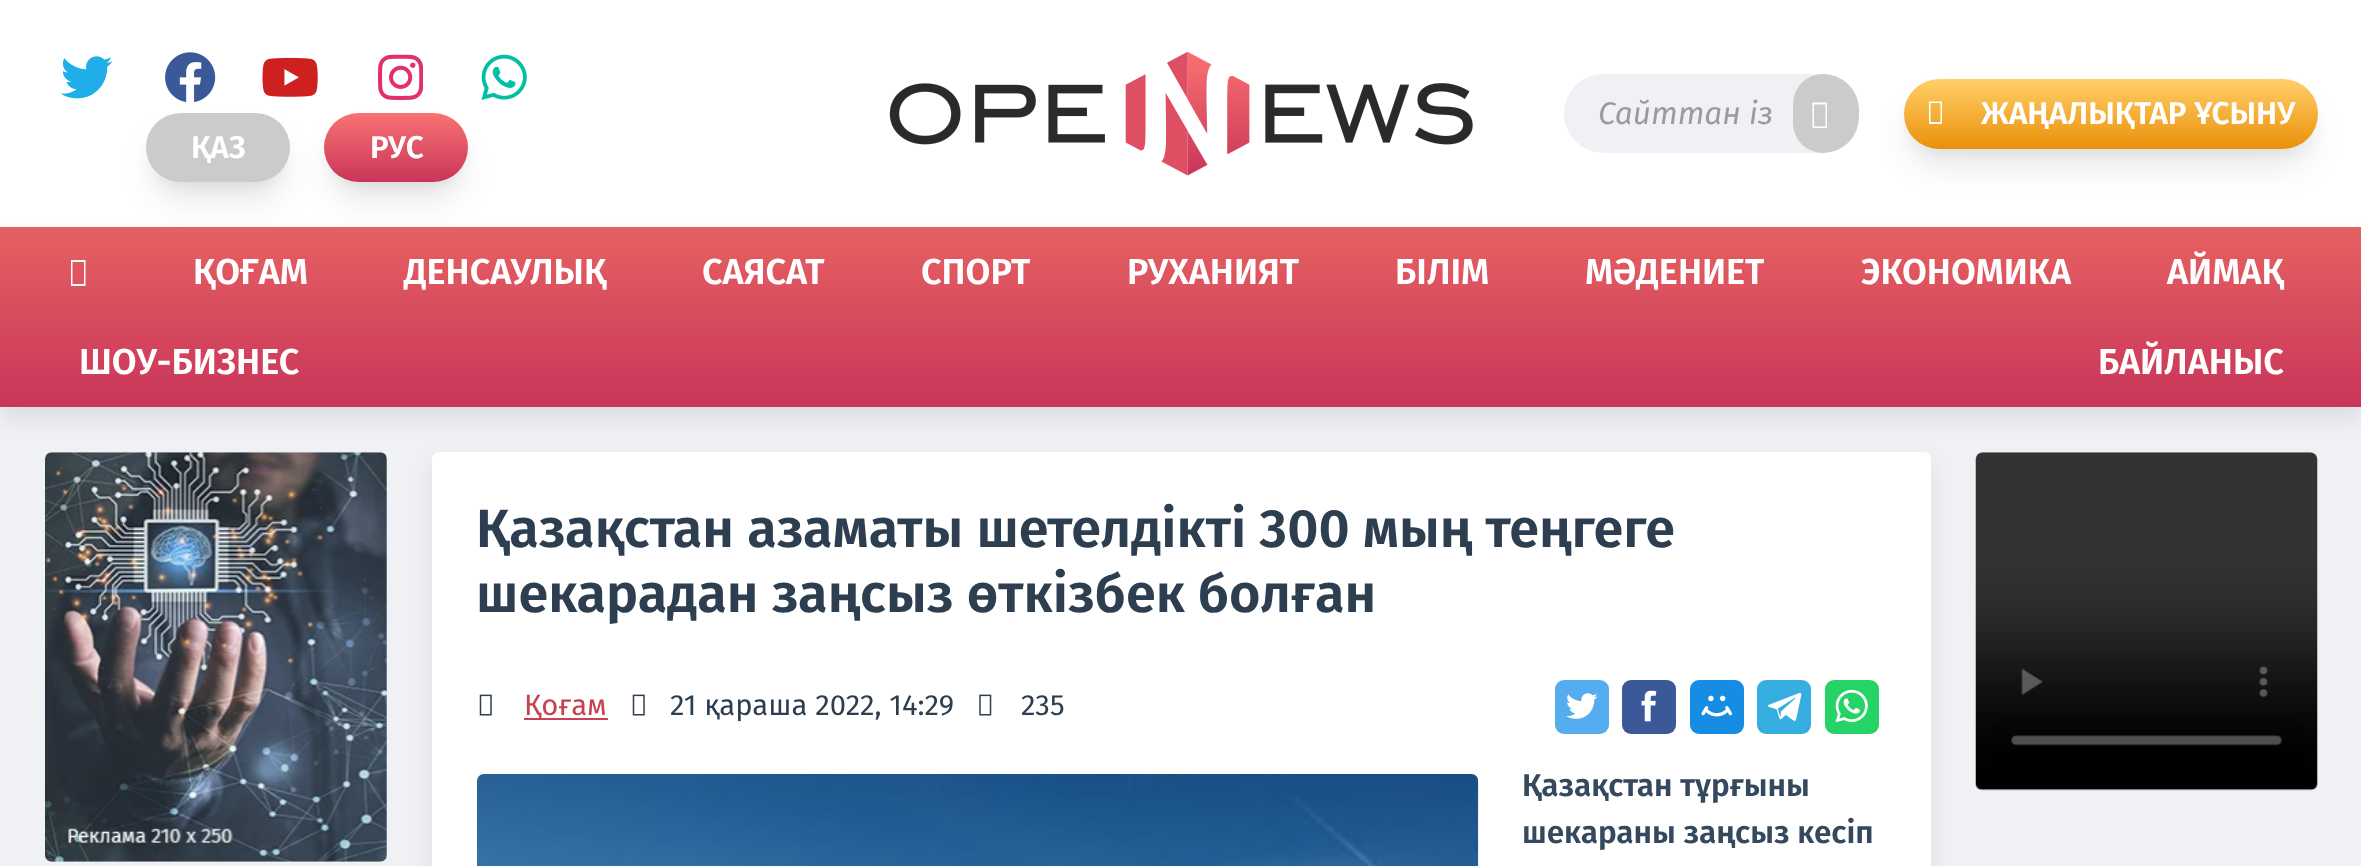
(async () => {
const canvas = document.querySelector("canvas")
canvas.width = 2361
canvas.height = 866
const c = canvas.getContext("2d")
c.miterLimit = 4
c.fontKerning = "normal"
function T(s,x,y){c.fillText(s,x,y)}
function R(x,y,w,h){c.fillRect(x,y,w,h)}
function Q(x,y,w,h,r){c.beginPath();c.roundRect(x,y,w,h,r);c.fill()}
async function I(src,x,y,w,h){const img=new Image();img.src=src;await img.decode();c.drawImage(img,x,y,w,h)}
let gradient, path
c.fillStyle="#f0f1f4"
R(0,0,2361,866)
c.fillStyle="#fff"
R(0,0,2361,227)
await I("1.png",889,52,584,124)
c.fillStyle="#0000001a"
c.filter="blur(17px)"
c.beginPath()
c.roundRect(1910,108,401,56,28)
c.fill()
c.filter="none"
c.fillStyle="#f0f1f4"
Q(1564,74,295,79,39.5)
c.font="italic 31.5px Fira Sans"
c.fillStyle="#9b9b9b"
T("Сайттан із",1598,124)
c.fillStyle="#cbcbcb"
c.beginPath()
c.roundRect(1793,74,66,79,[33,39.5,39.5,33])
c.fill()
c.fillStyle="#fff"
path = new Path2D("M1812.5 128v-25.5h14.5v25.5zm1.5-1.5h11.5v-22h-11.5z")
c.fill(path)
c.fillStyle="#0000000d"
c.filter="blur(7px)"
c.beginPath()
c.roundRect(1908,92,405,61,30.5)
c.fill()
c.filter="none"
gradient = c.createLinearGradient(2111,79,2111,149)
gradient.addColorStop(0,"#ffcf6a")
gradient.addColorStop(1,"#eb9009")
c.fillStyle = gradient
Q(1904,79,414,70,35)
c.fillStyle="#fff"
path = new Path2D("M1929 124v-22.5h13v22.5zm1.5-2h10v-19h-10z")
c.fill(path)
c.font="600 31.5px Fira Sans"
T("ЖАҢАЛЫҚТАР ҰСЫНУ",1981,124)
c.fillStyle="#00000014"
c.filter="blur(11px)"
c.beginPath()
c.rect(0,239,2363,180)
c.fill()
c.filter="none"
gradient = c.createLinearGradient(1181,227,1181,407)
gradient.addColorStop(0,"#e66161")
gradient.addColorStop(1,"#c9355a")
c.fillStyle = gradient
R(0,227,2361,180)
c.fillStyle="#0000001a"
c.filter="blur(17px)"
c.beginPath()
c.roundRect(153,142,131,56,28)
c.fill()
c.filter="none"
await I("2.png",60,56,53,43)
await I("3.png",165,52,51,51)
c.fillStyle="#0000000d"
c.filter="blur(7px)"
c.beginPath()
c.roundRect(151,126,135,61,30.5)
c.fill()
c.filter="none"
c.fillStyle="#cbcbcb"
Q(146,113,144,69,34.5)
c.fillStyle="#0000001a"
c.filter="blur(17px)"
c.beginPath()
c.roundRect(331,142,130,56,28)
c.fill()
c.filter="none"
await I("4.png",262,57,56,40)
await I("5.png",378,54,45,46)
await I("6.png",481,54,46,46)
c.fillStyle="#fff"
T("ҚАЗ",191,158)
c.fillStyle="#0000000d"
c.filter="blur(7px)"
c.beginPath()
c.roundRect(329,126,135,61,30.5)
c.fill()
c.filter="none"
gradient = c.createLinearGradient(396,113,396,182)
gradient.addColorStop(0,"#f97171")
gradient.addColorStop(1,"#c9355a")
c.fillStyle = gradient
Q(324,113,144,69,34.5)
c.fillStyle="#fff"
T("РУС",370,158)
path = new Path2D("M71 286v-26h14.5v26zm1.5-2h11.5v-22h-11.5z")
c.fill(path)
c.font="600 36px Fira Sans"
T("ҚОҒАМ",193,284)
T("ДЕНСАУЛЫҚ",404,284)
T("САЯСАТ",702,284)
T("СПОРТ",921,284)
T("РУХАНИЯТ",1127,284)
T("БІЛІМ",1395,284)
T("МӘДЕНИЕТ",1585,284)
T("ЭКОНОМИКА",1861,284)
T("АЙМАҚ",2167,284)
T("ШОУ-БИЗНЕС",79,374)
T("БАЙЛАНЫС",2098,374)
await I("7.png",45,452,342,410)
c.fillStyle="#00000014"
c.filter="blur(11px)"
c.beginPath()
c.roundRect(432,464,1499,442,7)
c.fill()
c.filter="none"
c.fillStyle="#fff"
Q(432,452,1499,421,7)
c.font="600 54px Fira Sans"
c.fillStyle="#2c3e50"
T("Қазақстан азаматы шетелдікті 300 мың теңгеге",476,547)
T("шекарадан заңсыз өткізбек болған",476,612)
await I("8.png",479,694,13,22)
c.fillStyle="#c5424f"
R(524,718,84,2)
c.font="29.25px Fira Sans"
T("Қоғам",524,715)
await I("8.png",632,694,13,22)
c.fillStyle="#2c3e50"
T("21 қараша 2022, 14:29",670,715)
await I("9.png",979,694,13,22)
T("235",1021,715)
c.fillStyle="#55acee"
Q(1555,680,54,54,9)
await I("10.png",1566,693,32,26)
c.fillStyle="#3b5998"
Q(1622,680,54,54,9)
await I("11.png",1641,690,16,32)
c.fillStyle="#168de2"
Q(1690,680,54,54,9)
await I("12.png",1701,695,31,22)
c.fillStyle="#37aee2"
Q(1757,680,54,54,9)
await I("13.png",1768,693,34,28)
c.fillStyle="#25d366"
Q(1825,680,54,54,9)
await I("14.png",1835,689,33,34)
await I("15.png",477,774,1002,92)
c.font="600 31.5px Fira Sans"
c.fillStyle="#34495e"
T("Қазақстан тұрғыны",1522,796)
T("шекараны заңсыз кесіп",1522,843)
await I("16.png",1975,452,343,339)
})()
